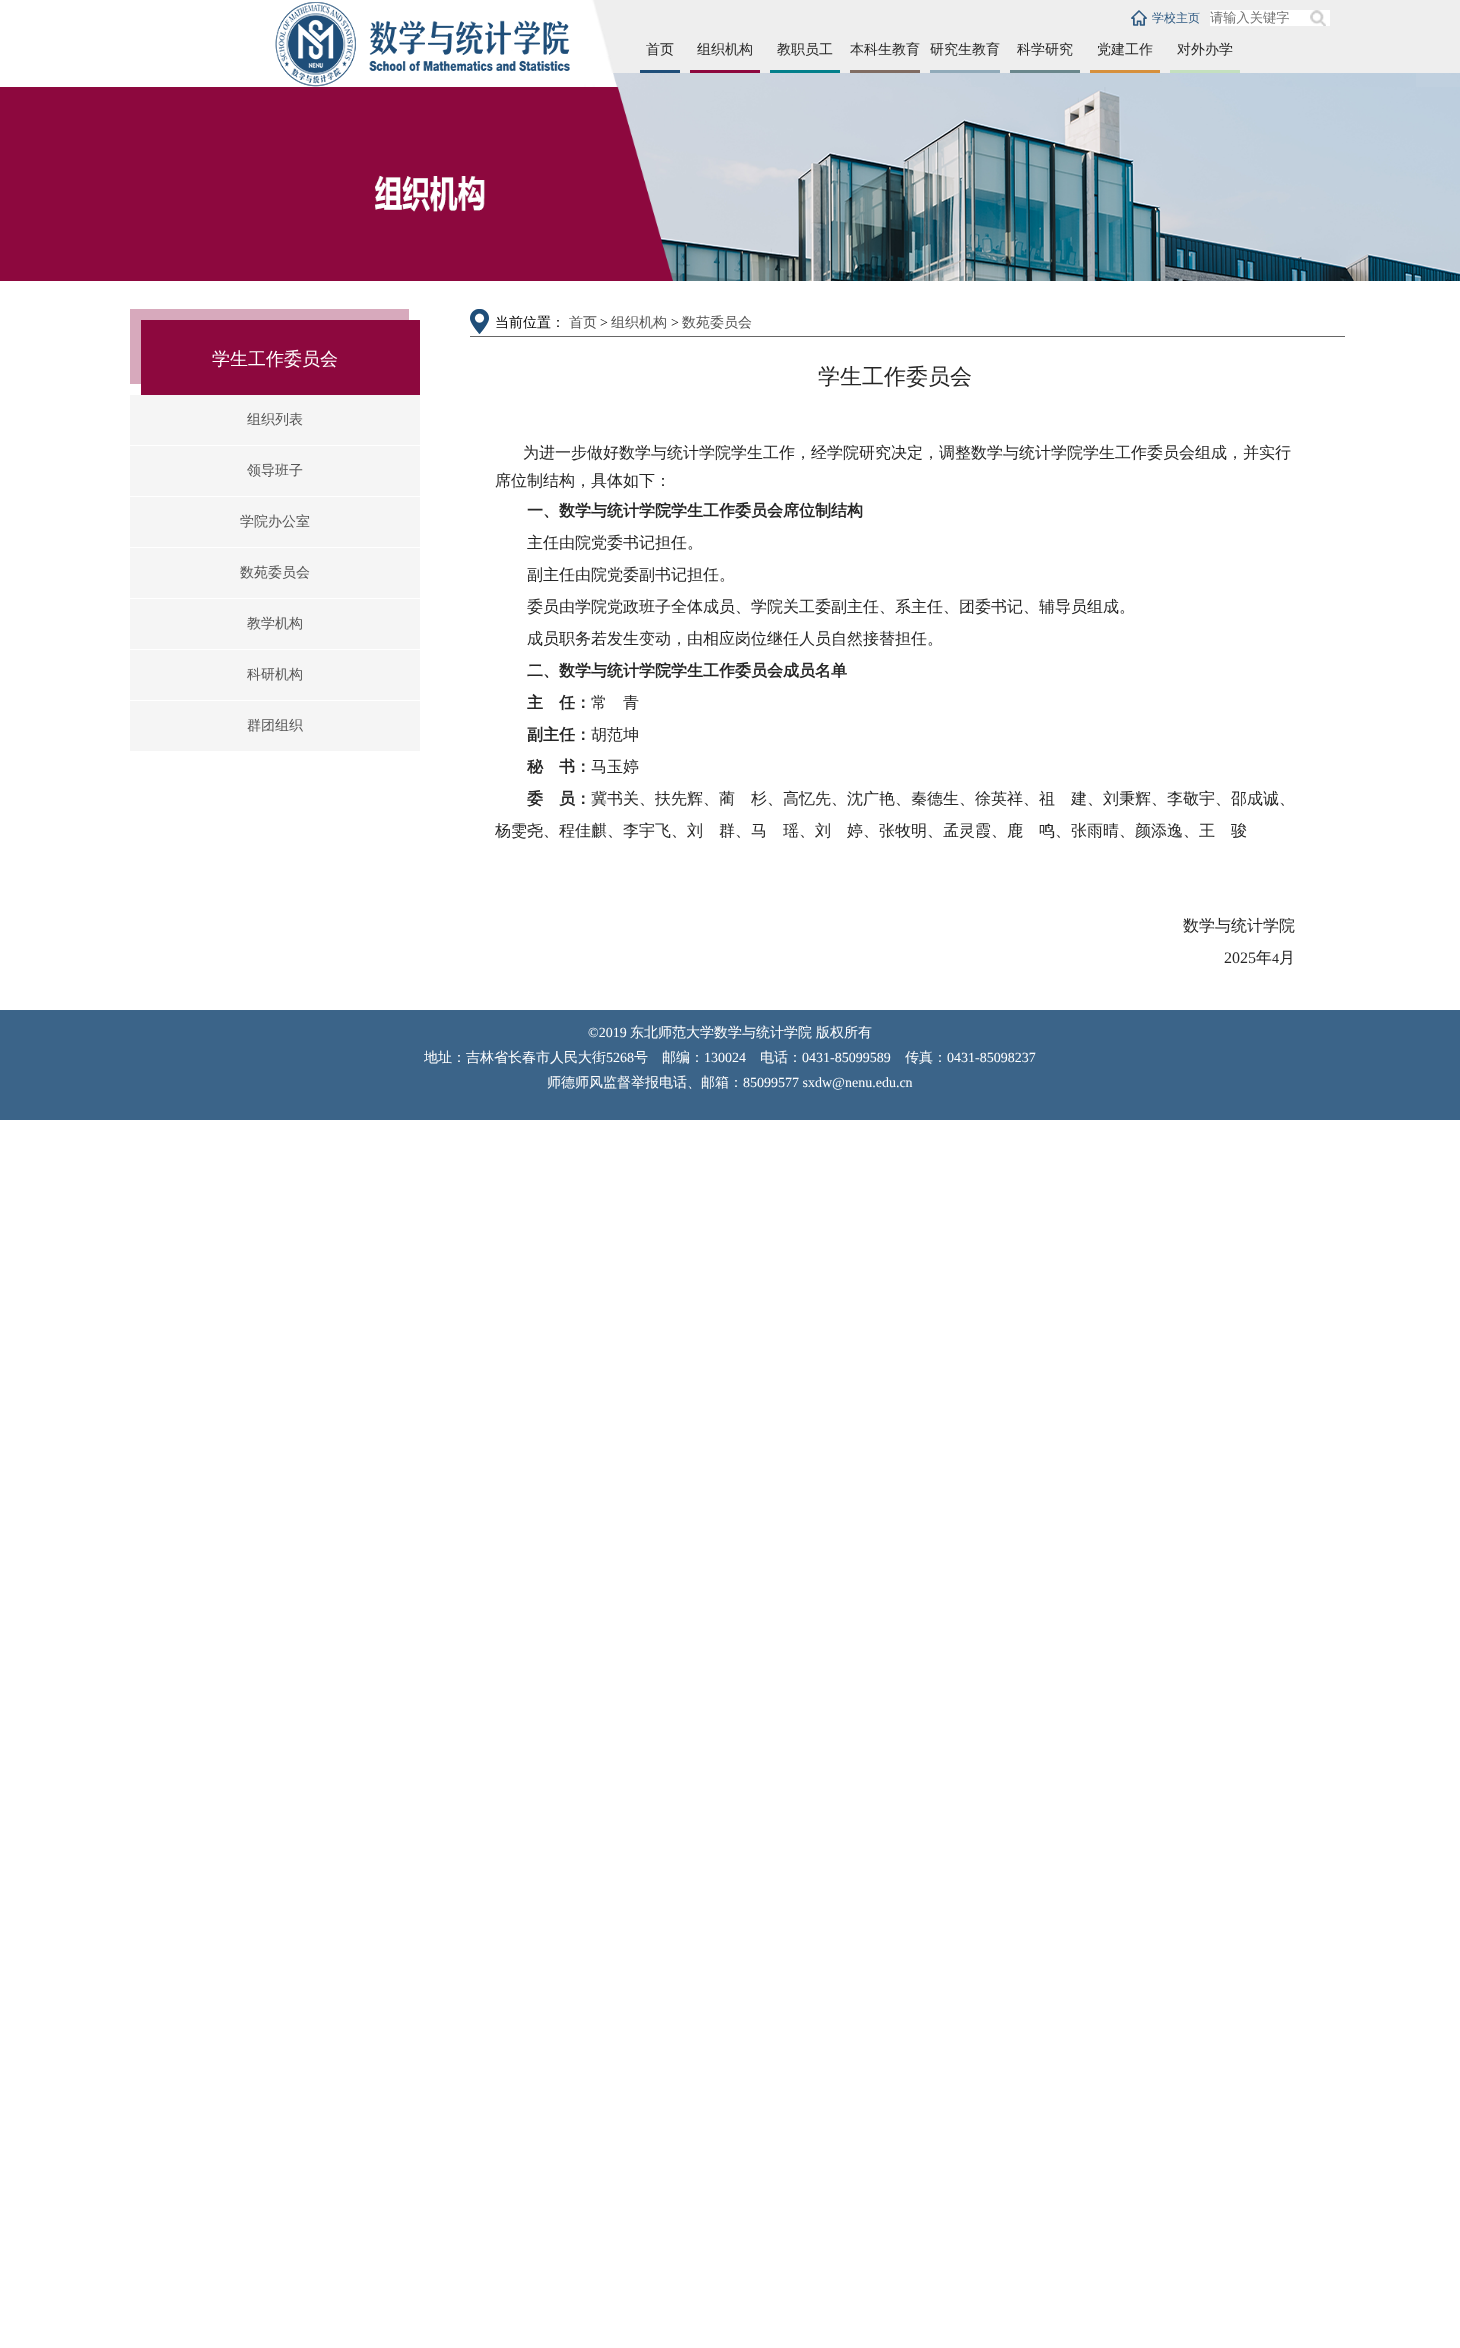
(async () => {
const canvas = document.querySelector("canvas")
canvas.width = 1460
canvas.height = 2348
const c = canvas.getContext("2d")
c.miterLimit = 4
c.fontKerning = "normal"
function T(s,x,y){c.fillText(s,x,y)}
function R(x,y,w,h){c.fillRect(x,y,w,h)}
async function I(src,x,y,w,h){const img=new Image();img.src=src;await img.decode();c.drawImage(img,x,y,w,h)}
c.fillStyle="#fff"
R(0,0,1460,2348)
await I("1.png",275,0,1185,87)
await I("2.png",1131,10,16,16)
c.font="500 12px WenQuanYi Zen Hei"
c.fillStyle="#2f5a82"
T("学校主页",1152,22)
c.fillStyle="#fff"
R(1210,10,120,16)
c.font="500 13.25px WenQuanYi Zen Hei"
c.fillStyle="#757575"
T("请输入关键字",1210,22)
await I("3.png",1310,10,16,16)
c.fillStyle="#1f4e79"
R(640,70,40,3)
c.font="500 14px WenQuanYi Zen Hei"
c.fillStyle="#262626"
T("首页",646,54)
c.fillStyle="#8d083e"
R(690,70,70,3)
c.fillStyle="#262626"
T("组织机构",697,54)
c.fillStyle="#027f8b"
R(770,70,70,3)
c.fillStyle="#262626"
T("教职员工",777,54)
c.fillStyle="#806c62"
R(850,70,70,3)
c.fillStyle="#262626"
T("本科生教育",850,54)
c.fillStyle="#90aab9"
R(930,70,70,3)
c.fillStyle="#262626"
T("研究生教育",930,54)
c.fillStyle="#6a878c"
R(1010,70,70,3)
c.fillStyle="#262626"
T("科学研究",1017,54)
c.fillStyle="#d6903c"
R(1090,70,70,3)
c.fillStyle="#262626"
T("党建工作",1097,54)
c.fillStyle="#c4e0be"
R(1170,70,70,3)
c.fillStyle="#262626"
T("对外办学",1177,54)
await I("4.png",0,87,1460,194)
await I("5.png",130,309,290,86)
c.font="500 18px WenQuanYi Zen Hei"
c.fillStyle="#fff"
T("学生工作委员会",212,365)
c.fillStyle="#f5f5f5"
R(130,395,290,50)
c.font="500 14px WenQuanYi Zen Hei"
c.fillStyle="#555"
T("组织列表",247,424)
c.fillStyle="#f5f5f5"
R(130,446,290,50)
c.fillStyle="#555"
T("领导班子",247,475)
c.fillStyle="#f5f5f5"
R(130,497,290,50)
c.fillStyle="#555"
T("学院办公室",240,526)
c.fillStyle="#f5f5f5"
R(130,548,290,50)
c.fillStyle="#555"
T("数苑委员会",240,577)
c.fillStyle="#f5f5f5"
R(130,599,290,50)
c.fillStyle="#555"
T("教学机构",247,628)
c.fillStyle="#f5f5f5"
R(130,650,290,50)
c.fillStyle="#555"
T("科研机构",247,679)
c.fillStyle="#f5f5f5"
R(130,701,290,50)
c.fillStyle="#555"
T("群团组织",247,730)
await I("6.png",470,309,19,25)
c.fillStyle="#666"
R(470,336,875,1)
c.fillStyle="#000"
T("当前位置：",495,327)
c.fillStyle="#555"
T("首页",569,327)
c.font="14px Liberation Serif"
c.fillStyle="#000"
T(">",600,327)
c.font="500 14px WenQuanYi Zen Hei"
c.fillStyle="#555"
T("组织机构",611,327)
c.font="14px Liberation Serif"
c.fillStyle="#000"
T(">",671,327)
c.font="500 14px WenQuanYi Zen Hei"
c.fillStyle="#555"
T("数苑委员会",682,327)
c.font="500 22px WenQuanYi Zen Hei"
c.fillStyle="#262626"
T("学生工作委员会",818,384)
c.font="500 16px WenQuanYi Zen Hei"
T("为进一步做好数学与统计学院学生工作，经学院研究决定，调整数学与统计学院学生工作委员会组成，并实行",523,458)
T("席位制结构，具体如下：",495,486)
c.font="bold 16px WenQuanYi Zen Hei"
T("一、数学与统计学院学生工作委员会席位制结构",527,516)
c.font="500 16px WenQuanYi Zen Hei"
T("主任由院党委书记担任。",527,548)
T("副主任由院党委副书记担任。",527,580)
T("委员由学院党政班子全体成员、学院关工委副主任、系主任、团委书记、辅导员组成。",527,612)
T("成员职务若发生变动，由相应岗位继任人员自然接替担任。",527,644)
c.font="bold 16px WenQuanYi Zen Hei"
T("二、数学与统计学院学生工作委员会成员名单",527,676)
T("主　任：",527,708)
c.font="500 16px WenQuanYi Zen Hei"
T("常",591,708)
T("青",623,708)
c.font="bold 16px WenQuanYi Zen Hei"
T("副主任：",527,740)
c.font="500 16px WenQuanYi Zen Hei"
T("胡范坤",591,740)
c.font="bold 16px WenQuanYi Zen Hei"
T("秘　书：",527,772)
c.font="500 16px WenQuanYi Zen Hei"
T("马玉婷",591,772)
c.font="bold 16px WenQuanYi Zen Hei"
T("委　员：",527,804)
c.font="500 16px WenQuanYi Zen Hei"
T("冀书关、扶先辉、蔺　杉、高忆先、沈广艳、秦德生、徐英祥、祖",591,804)
T("建、刘秉辉、李敬宇、邵成诚、",1071,804)
T("杨雯尧、程佳麒、李宇飞、刘　群、马　瑶、刘　婷、张牧明、孟灵霞、鹿　鸣、张雨晴、颜添逸、王　骏",495,836)
T("数学与统计学院",1183,931)
c.font="16px Liberation Serif"
T("2025",1224,963)
c.font="500 16px WenQuanYi Zen Hei"
T("年",1256,963)
c.font="14px Liberation Serif"
T("4",1272,963)
c.font="500 16px WenQuanYi Zen Hei"
T("月",1279,963)
c.fillStyle="#3b6489"
R(0,1010,1460,110)
c.font="14px Liberation Serif"
c.fillStyle="#fff"
T("©2019",588,1037)
c.font="500 14px WenQuanYi Zen Hei"
T("东北师范大学数学与统计学院",630,1037)
T("版权所有",816,1037)
T("地址：吉林省长春市人民大街",424,1062)
c.font="14px Liberation Serif"
T("5268",606,1062)
c.font="500 14px WenQuanYi Zen Hei"
T("号　邮编：",634,1062)
c.font="14px Liberation Serif"
T("130024",704,1062)
c.font="500 14px WenQuanYi Zen Hei"
T("电话：",760,1062)
c.font="14px Liberation Serif"
T("0431-85099589",802,1062)
c.font="500 14px WenQuanYi Zen Hei"
T("传真：",905,1062)
c.font="14px Liberation Serif"
T("0431-85098237",947,1062)
c.font="500 14px WenQuanYi Zen Hei"
T("师德师风监督举报电话、邮箱：",547,1087)
c.font="14px Liberation Serif"
T("85099577 sxdw@nenu.edu.cn",743,1087)
})()
